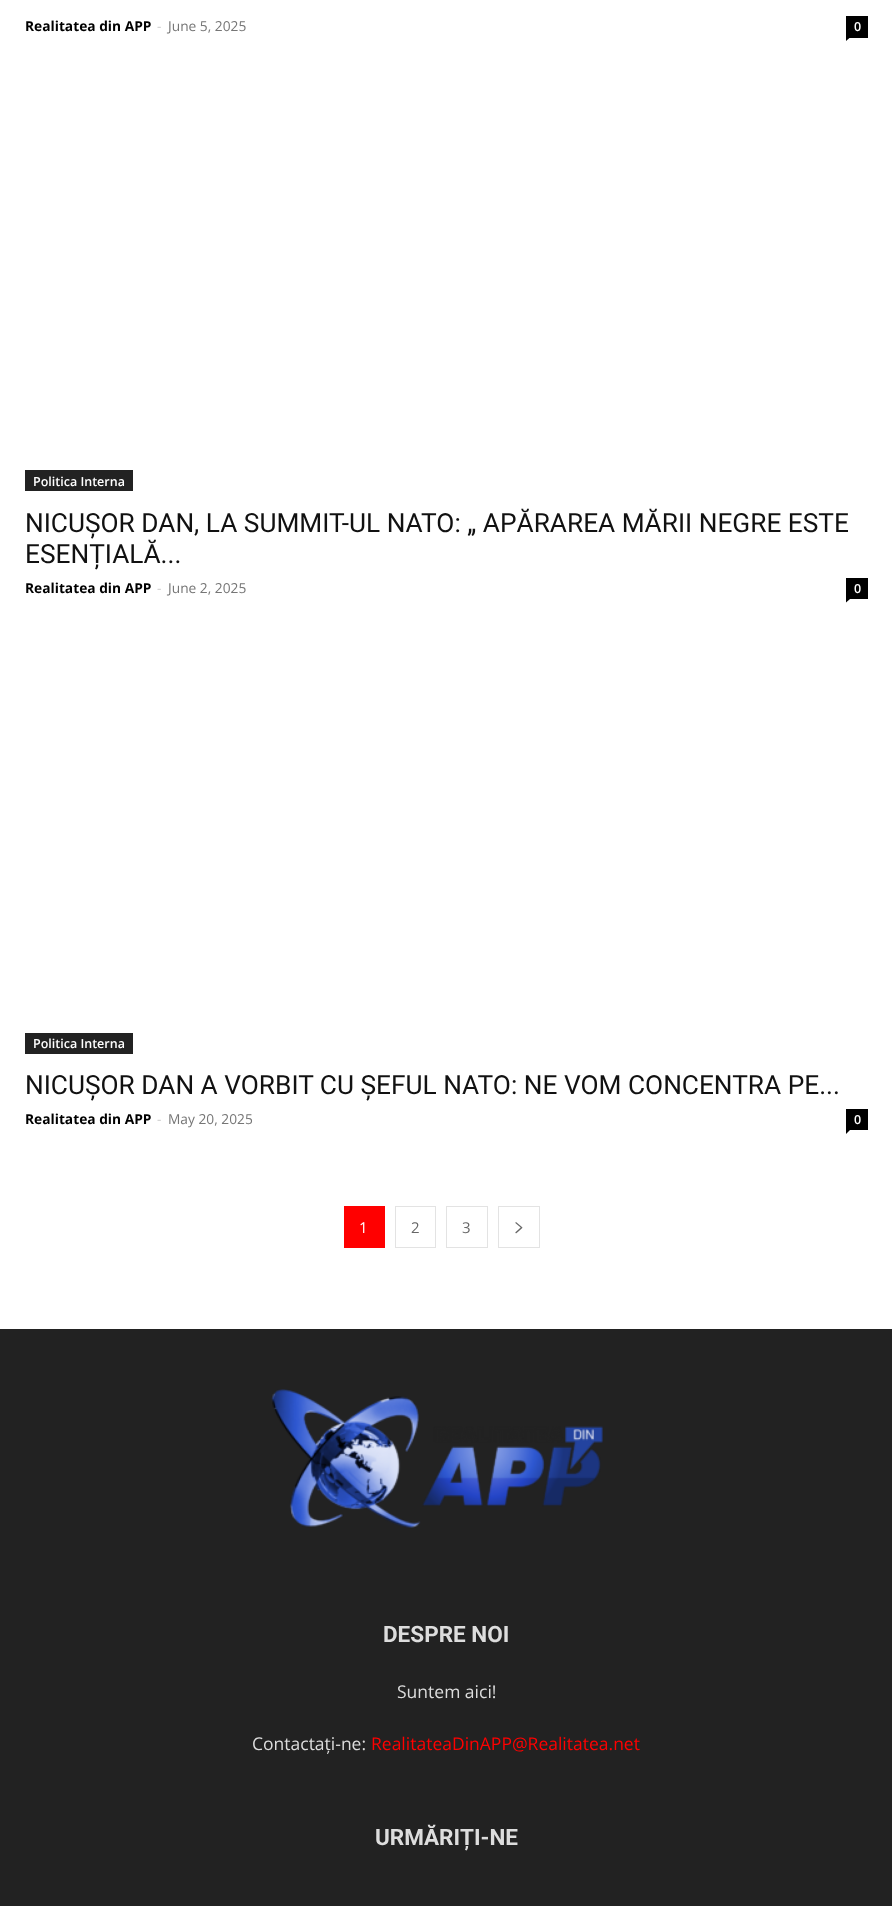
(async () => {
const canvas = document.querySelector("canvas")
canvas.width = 892
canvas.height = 1906
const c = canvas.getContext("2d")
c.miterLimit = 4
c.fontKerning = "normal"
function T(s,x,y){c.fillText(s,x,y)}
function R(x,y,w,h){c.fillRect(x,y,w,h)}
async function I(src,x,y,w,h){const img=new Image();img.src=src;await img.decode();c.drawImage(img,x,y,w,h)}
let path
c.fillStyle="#fff"
R(0,0,892,1906)
c.font="bold 13.75px Open Sans"
c.fillStyle="#000"
T("Realitatea din APP",25,31)
c.font="13.75px Open Sans"
c.fillStyle="#ccc"
T("-",157,31)
c.fillStyle="#767676"
T("June 5, 2025",168,31)
c.fillStyle="#000"
R(846,16,22,22)
c.font="600 12.5px Open Sans"
c.fillStyle="#fff"
T("0",854,31)
c.fillStyle="#000"
path = new Path2D("M846 37.5h4l-4 3.5z")
c.fill(path)
c.fillStyle="#222"
R(25,470,108,21)
c.fillStyle="#fff"
T("Politica Interna",33,486)
c.font="26.25px Roboto"
c.fillStyle="#111"
T("NICUȘOR DAN, LA SUMMIT-UL NATO: „ APĂRAREA MĂRII NEGRE ESTE",25,532)
T("ESENȚIALĂ...",25,563)
c.font="bold 13.75px Open Sans"
c.fillStyle="#000"
T("Realitatea din APP",25,593)
c.font="13.75px Open Sans"
c.fillStyle="#ccc"
T("-",157,593)
c.fillStyle="#767676"
T("June 2, 2025",168,593)
c.fillStyle="#000"
R(846,578,22,21)
c.font="600 12.5px Open Sans"
c.fillStyle="#fff"
T("0",854,593)
c.fillStyle="#000"
path = new Path2D("M846 599h4l-4 3.5z")
c.fill(path)
c.fillStyle="#222"
R(25,1033,108,21)
c.fillStyle="#fff"
T("Politica Interna",33,1048)
c.font="26.25px Roboto"
c.fillStyle="#111"
T("NICUȘOR DAN A VORBIT CU ȘEFUL NATO: NE VOM CONCENTRA PE...",25,1094)
c.font="bold 13.75px Open Sans"
c.fillStyle="#000"
T("Realitatea din APP",25,1124)
c.font="13.75px Open Sans"
c.fillStyle="#ccc"
T("-",157,1124)
c.fillStyle="#767676"
T("May 20, 2025",168,1124)
c.fillStyle="#000"
R(846,1109,22,21)
c.font="600 12.5px Open Sans"
c.fillStyle="#fff"
T("0",854,1124)
c.fillStyle="#000"
path = new Path2D("M846 1130h4l-4 4z")
c.fill(path)
c.fillStyle="#f00"
R(344,1206,41,42)
c.font="15px Open Sans"
c.fillStyle="#fff"
T("1",359,1233)
c.strokeStyle="#e3e3e3"
c.strokeRect(395.5,1206.5,40,41)
c.fillStyle="#666"
T("2",411,1233)
c.strokeRect(446.5,1206.5,41,41)
T("3",462,1233)
c.strokeRect(498.5,1206.5,41,41)
await I("1.png",515,1222,8,12)
c.fillStyle="#222"
R(0,1329,892,577)
await I("2.png",271,1389,332,139)
c.font="bold 22.5px Roboto"
c.fillStyle="#ddd"
T("DESPRE NOI",383,1642)
c.font="17.5px Open Sans"
T("Suntem aici!",397,1698)
T("Contactați-ne:",252,1750)
c.fillStyle="#f00"
T("RealitateaDinAPP@Realitatea.net",371,1750)
c.font="bold 22.5px Roboto"
c.fillStyle="#ddd"
T("URMĂRIȚI-NE",375,1845)
})()
